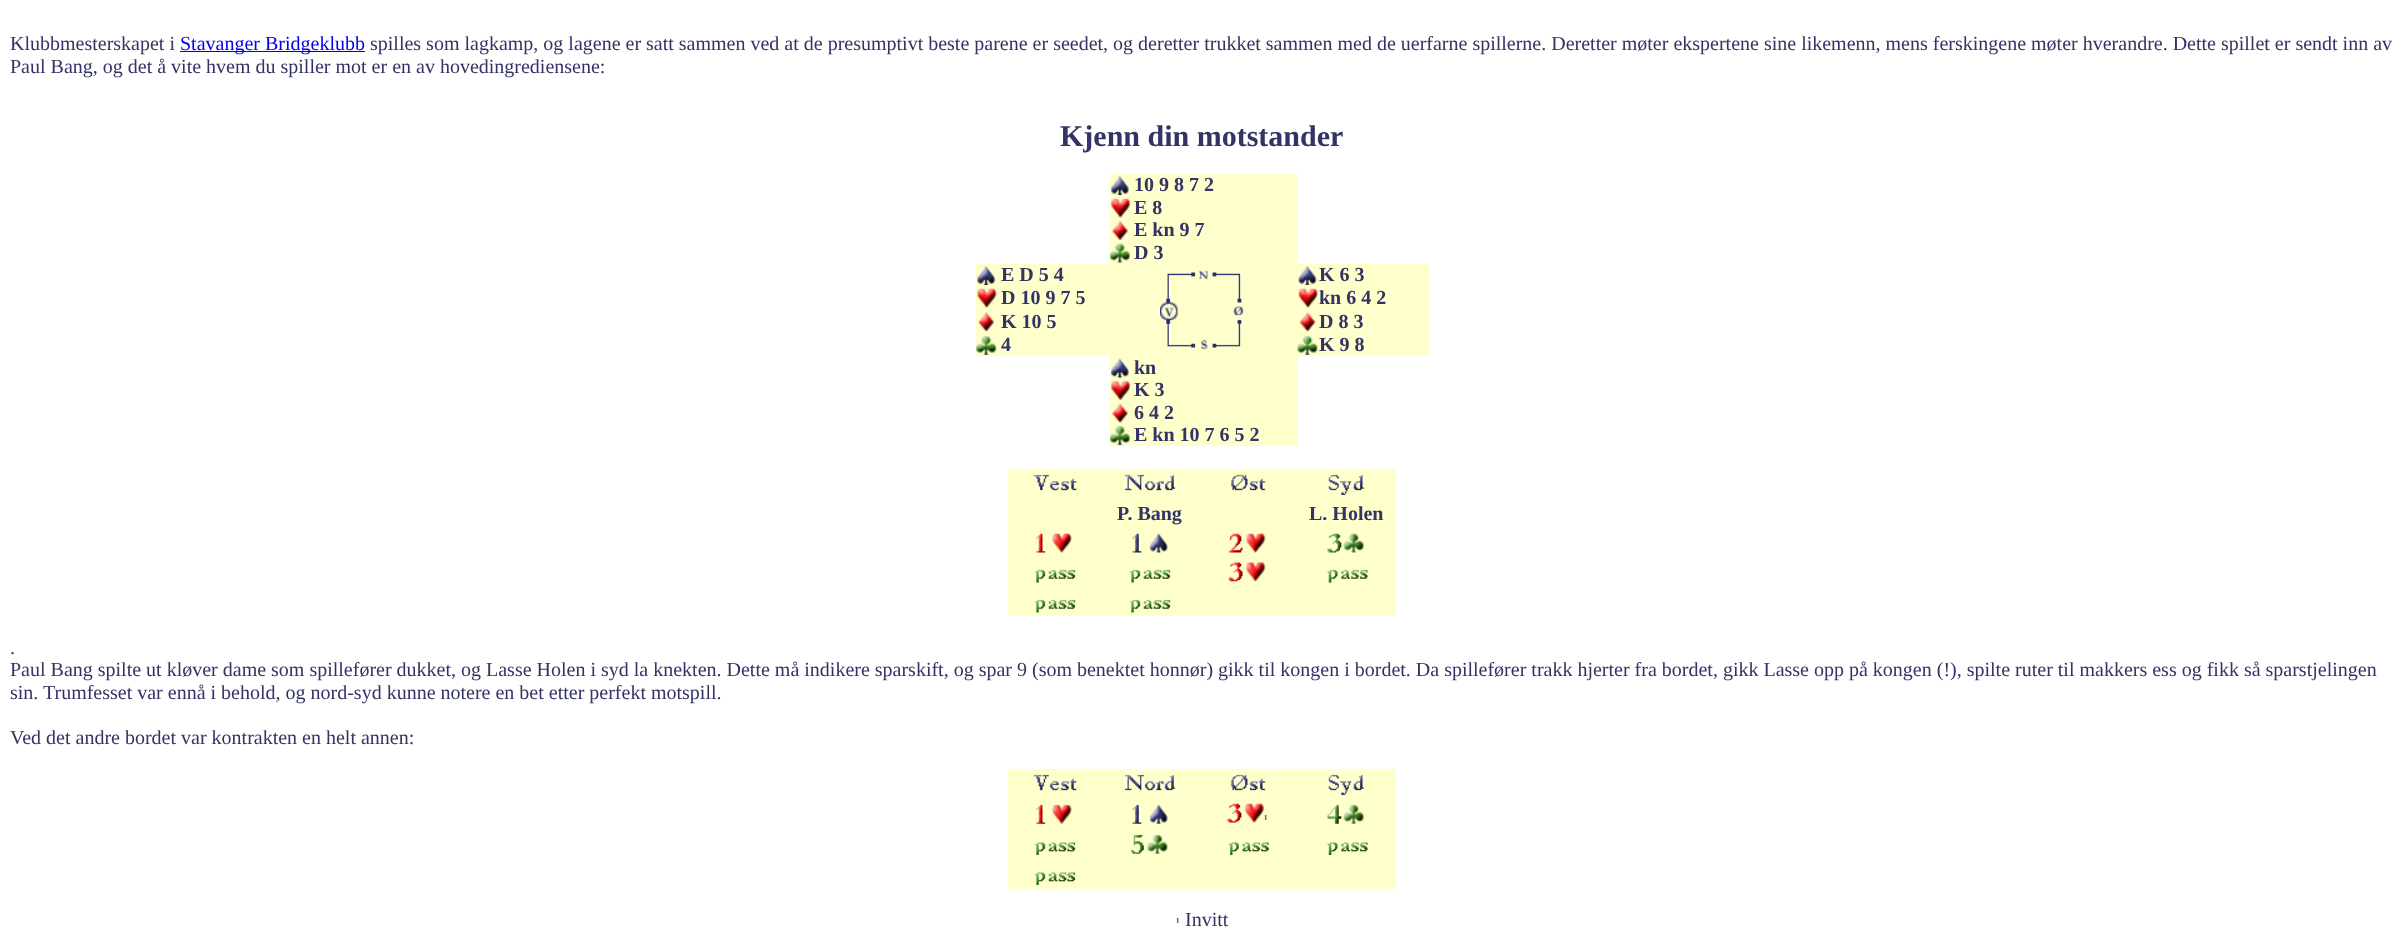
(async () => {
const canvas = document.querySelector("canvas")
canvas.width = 2403
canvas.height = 927
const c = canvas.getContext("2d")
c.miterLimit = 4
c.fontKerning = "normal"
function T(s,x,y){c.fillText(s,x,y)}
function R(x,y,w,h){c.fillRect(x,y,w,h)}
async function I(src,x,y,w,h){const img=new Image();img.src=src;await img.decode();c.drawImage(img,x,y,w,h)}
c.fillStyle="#fff"
R(0,0,2403,927)
c.font="20px Liberation Serif"
c.fillStyle="#336"
T("Klubbmesterskapet i",10,50)
c.fillStyle="#00e"
R(180,51,185,1)
T("Stavanger Bridgeklubb",180,50)
c.fillStyle="#336"
T("spilles som lagkamp, og lagene er satt sammen ved at de presumptivt beste parene er seedet, og deretter trukket sammen med de uerfarne spillerne. Deretter møter ekspertene sine likemenn, mens ferskingene møter hverandre. Dette spillet er sendt inn av",370,50)
T("Paul Bang, og det å vite hvem du spiller mot er en av hovedingrediensene:",10,73)
c.font="bold 30px Liberation Serif"
T("Kjenn din motstander",1060,146)
c.fillStyle="#ffc"
R(1110,174,188,22)
await I("1.png",1111,176,18,19)
c.font="bold 20px Liberation Serif"
c.fillStyle="#336"
T("10 9 8 7 2",1134,191)
c.fillStyle="#ffc"
R(1110,196,188,23)
await I("2.png",1111,198,19,20)
c.fillStyle="#336"
T("E 8",1134,214)
c.fillStyle="#ffc"
R(1110,219,188,22)
await I("3.png",1112,221,16,19)
c.fillStyle="#336"
T("E kn 9 7",1134,236)
c.fillStyle="#ffc"
R(1110,241,188,23)
await I("4.png",1110,243,20,20)
c.fillStyle="#336"
T("D 3",1134,259)
c.fillStyle="#ffc"
R(976,264,453,92)
await I("5.png",977,266,19,19)
c.fillStyle="#336"
T("E D 5 4",1001,281)
await I("6.png",1160,271,84,79)
await I("7.png",1298,266,19,19)
T("K 6 3",1319,281)
await I("8.png",977,288,20,20)
T("D 10 9 7 5",1001,304)
await I("9.png",1298,288,20,20)
T("kn 6 4 2",1319,304)
await I("10.png",978,312,16,20)
T("K 10 5",1001,328)
await I("11.png",1299,312,17,20)
T("D 8 3",1319,328)
await I("12.png",976,336,21,19)
T("4",1001,351)
await I("13.png",1297,336,21,19)
T("K 9 8",1319,351)
c.fillStyle="#ffc"
R(1110,356,188,23)
await I("14.png",1111,358,18,20)
c.fillStyle="#336"
T("kn",1134,374)
c.fillStyle="#ffc"
R(1110,379,188,22)
await I("15.png",1111,381,19,19)
c.fillStyle="#336"
T("K 3",1134,396)
c.fillStyle="#ffc"
R(1110,401,188,23)
await I("16.png",1112,403,16,20)
c.fillStyle="#336"
T("6 4 2",1134,419)
c.fillStyle="#ffc"
R(1110,424,188,22)
await I("17.png",1110,426,20,19)
c.fillStyle="#336"
T("E kn 10 7 6 5 2",1134,441)
c.fillStyle="#ffc"
R(1008,469,388,147)
await I("18.png",1033,474,44,17)
await I("19.png",1124,474,52,17)
await I("20.png",1231,474,35,17)
await I("21.png",1328,474,36,21)
c.fillStyle="#336"
T("P. Bang",1117,520)
T("L. Holen",1309,520)
await I("22.png",1036,533,36,20)
await I("23.png",1132,533,36,20)
await I("24.png",1228,533,38,20)
await I("25.png",1327,533,37,20)
await I("26.png",1034,569,42,14)
await I("27.png",1129,569,42,14)
await I("28.png",1228,562,38,20)
await I("29.png",1327,569,41,14)
await I("26.png",1034,599,42,14)
await I("27.png",1129,599,42,14)
c.font="20px Liberation Serif"
T(".",10,654)
T("Paul Bang spilte ut kløver dame som spillefører dukket, og Lasse Holen i syd la knekten. Dette må indikere sparskift, og spar 9 (som benektet honnør) gikk til kongen i bordet. Da spillefører trakk hjerter fra bordet, gikk Lasse opp på kongen (!), spilte ruter til makkers ess og fikk så sparstjelingen",10,676)
T("sin. Trumfesset var ennå i behold, og nord-syd kunne notere en bet etter perfekt motspill.",10,699)
T("Ved det andre bordet var kontrakten en helt annen:",10,744)
c.fillStyle="#ffc"
R(1008,769,388,120)
await I("30.png",1033,774,44,17)
await I("31.png",1124,774,52,17)
await I("32.png",1231,774,35,17)
await I("33.png",1328,774,36,21)
await I("34.png",1036,804,36,20)
await I("35.png",1132,804,36,20)
await I("36.png",1227,803,37,20)
c.font="bold 12px Liberation Serif"
c.fillStyle="#336"
T("¹",1264,823)
await I("37.png",1327,804,37,20)
await I("38.png",1034,842,42,13)
await I("39.png",1131,834,37,20)
await I("40.png",1228,842,41,13)
await I("41.png",1327,842,41,13)
await I("38.png",1034,872,42,13)
T("¹",1176,926)
c.font="20px Liberation Serif"
T("Invitt",1185,926)
})()
